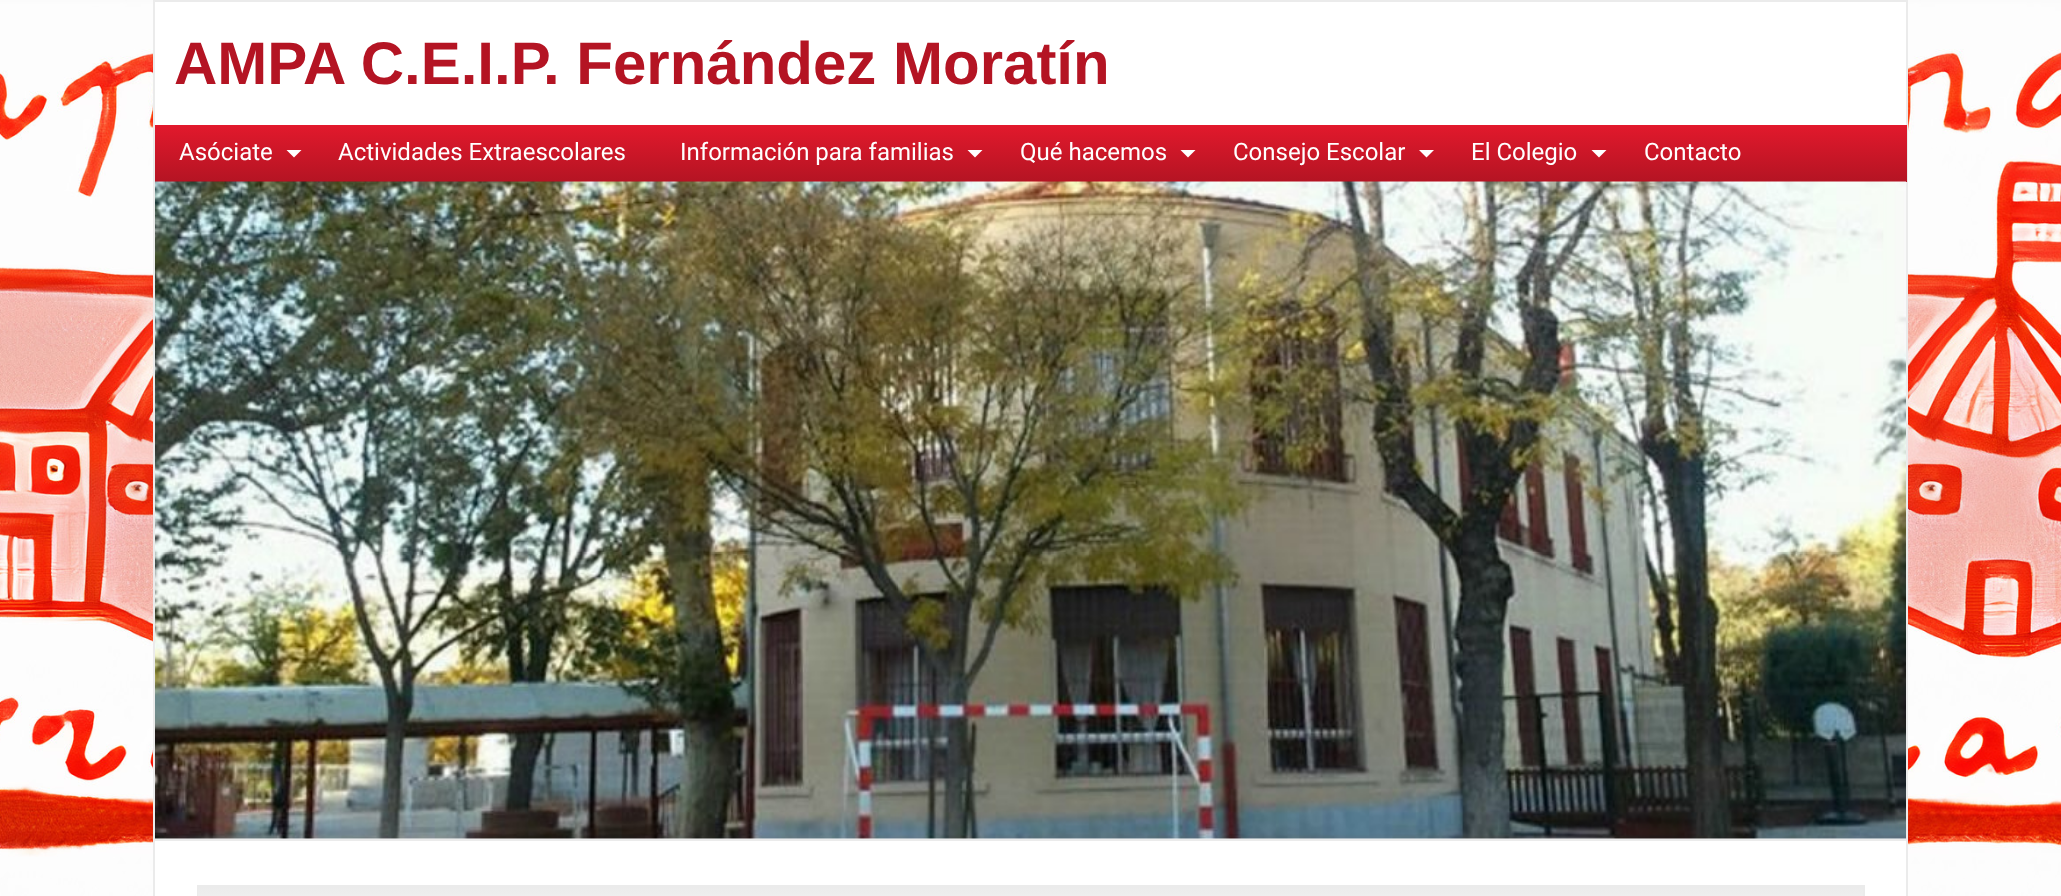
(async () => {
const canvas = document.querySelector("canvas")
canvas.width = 2061
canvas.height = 896
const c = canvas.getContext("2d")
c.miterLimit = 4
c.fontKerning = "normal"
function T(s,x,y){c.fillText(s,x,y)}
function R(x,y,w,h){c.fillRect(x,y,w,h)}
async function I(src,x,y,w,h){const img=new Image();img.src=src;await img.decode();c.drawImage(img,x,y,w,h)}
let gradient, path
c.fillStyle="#fff"
R(0,0,2061,896)
await I("1.png",0,0,2061,896)
c.beginPath()
c.rect(154,1,1753,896)
c.fill()
c.strokeStyle="#ebebeb"
c.lineWidth=2
c.stroke()
c.font="bold 60px Arimo"
c.fillStyle="#b41423"
T("AMPA C.E.I.P. Fernández Moratín",174,84)
gradient = c.createLinearGradient(155,125,155,182)
gradient.addColorStop(0,"#e2192c")
gradient.addColorStop(1,"#b41423")
c.fillStyle = gradient
R(155,125,1752,57)
c.font="24px Roboto"
c.fillStyle="#fff"
T("Asóciate",179,160)
path = new Path2D("M286.5 150h15l-7.5 7.5z")
c.fill(path)
T("Actividades Extraescolares",338,160)
T("Información para familias",680,160)
path = new Path2D("M967.5 150h15l-7.5 7.5z")
c.fill(path)
T("Qué hacemos",1020,160)
path = new Path2D("M1180.5 150h15l-7.5 7.5z")
c.fill(path)
T("Consejo Escolar",1233,160)
path = new Path2D("M1419 150h15l-7.5 7.5z")
c.fill(path)
T("El Colegio",1471,160)
path = new Path2D("M1591.5 150h15l-7.5 7.5z")
c.fill(path)
T("Contacto",1644,160)
await I("2.png",155,181,1751,658)
c.fillStyle="#ebebeb"
R(155,839,1752,2)
c.strokeRect(198,886,1666,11)
gradient = c.createLinearGradient(198,887,198,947)
gradient.addColorStop(0,"#ebebeb")
gradient.addColorStop(1,"#fff")
c.fillStyle = gradient
R(198,887,1665,9)
})()
